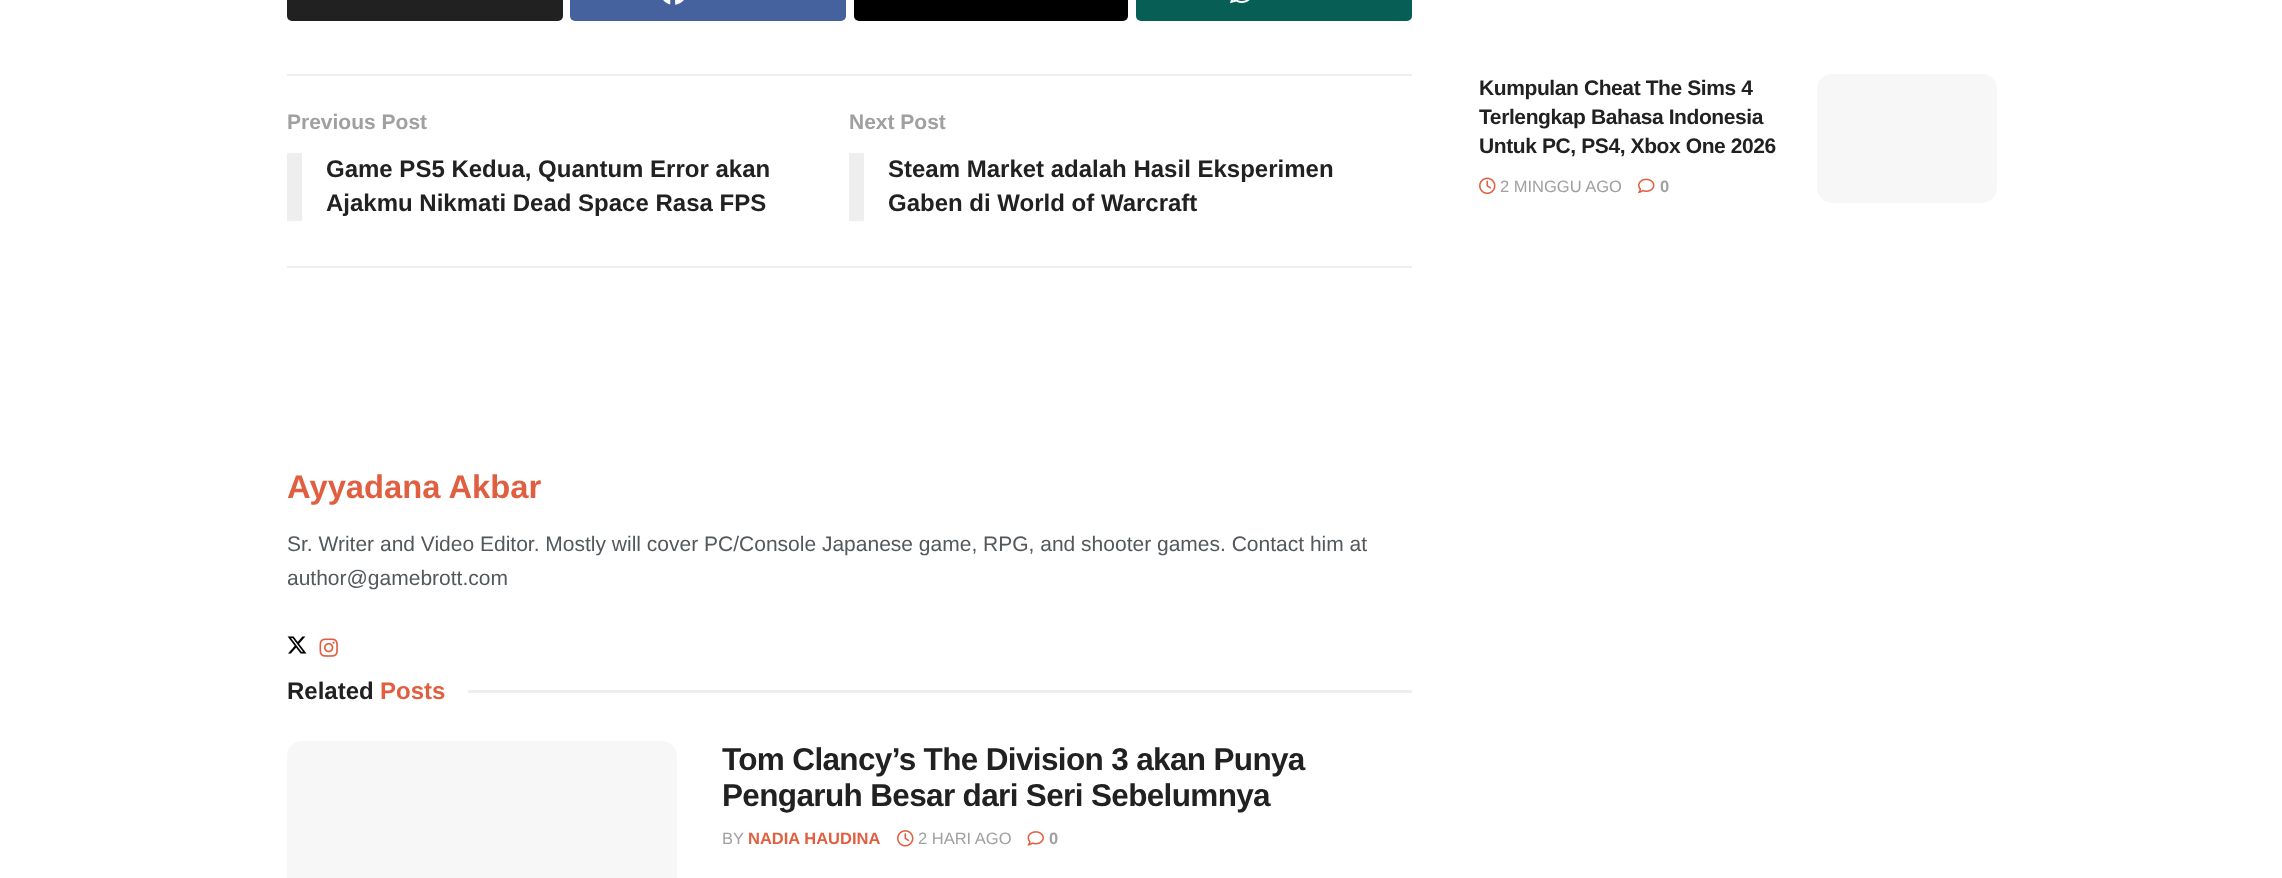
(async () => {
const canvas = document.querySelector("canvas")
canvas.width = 2282
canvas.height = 878
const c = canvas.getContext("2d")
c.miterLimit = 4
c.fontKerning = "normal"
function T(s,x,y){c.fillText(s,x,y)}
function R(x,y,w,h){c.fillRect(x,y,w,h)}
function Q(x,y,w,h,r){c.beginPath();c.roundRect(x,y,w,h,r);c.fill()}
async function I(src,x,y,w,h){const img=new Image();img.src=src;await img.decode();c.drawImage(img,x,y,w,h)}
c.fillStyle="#fff"
R(0,0,2282,878)
c.fillStyle="#212121"
Q(287,-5,276,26,5)
c.fillStyle="#45629f"
Q(570,-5,276,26,5)
await I("1.png",663,0,21,5)
c.fillStyle="#000"
Q(854,-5,274,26,5)
c.fillStyle="#075e54"
Q(1136,-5,276,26,5)
await I("2.png",1230,0,20,4)
c.fillStyle="#eee"
R(287,74,1125,2)
R(287,266,1125,2)
c.font="bold 21px Liberation Sans"
c.fillStyle="#a0a0a0"
T("Previous Post",287,129)
c.fillStyle="#eee"
R(287,153,15,68)
c.font="bold 24px Liberation Sans"
c.fillStyle="#212121"
T("Game PS5 Kedua, Quantum Error akan",326,177)
T("Ajakmu Nikmati Dead Space Rasa FPS",326,211)
c.font="bold 21px Liberation Sans"
c.fillStyle="#a0a0a0"
T("Next Post",849,129)
c.fillStyle="#eee"
R(849,153,15,68)
c.font="bold 24px Liberation Sans"
c.fillStyle="#212121"
T("Steam Market adalah Hasil Eksperimen",888,177)
T("Gaben di World of Warcraft",888,211)
c.font="bold 32.75px Liberation Sans"
c.fillStyle="#e15f41"
T("Ayyadana Akbar",287,498)
c.font="21px Liberation Sans"
c.fillStyle="#53585c"
T("Sr. Writer and Video Editor. Mostly will cover PC/Console Japanese game, RPG, and shooter games. Contact him at",287,551)
T("author@gamebrott.com",287,585)
await I("3.png",287,636,20,18)
await I("4.png",319,638,19,19)
c.font="bold 24px Liberation Sans"
c.fillStyle="#212121"
T("Related",287,699)
c.fillStyle="#e15f41"
T("Posts",380,699)
c.fillStyle="#eee"
R(468,690,944,3)
c.fillStyle="#f7f7f7"
Q(287,741,390,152,15)
c.save()
c.beginPath()
c.rect(722,741,690,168)
c.clip()
c.letterSpacing="-0.65px"
c.font="bold 31.5px Liberation Sans"
c.fillStyle="#212121"
T("Tom Clancy’s The Division 3 akan Punya",722,770)
c.restore()
c.letterSpacing="-0.65px"
c.font="bold 31.5px Liberation Sans"
c.fillStyle="#212121"
T("Pengaruh Besar dari Seri Sebelumnya",722,806)
c.letterSpacing="0px"
c.font="16.5px Liberation Sans"
c.fillStyle="#a0a0a0"
T("BY",722,844)
c.font="bold 16.5px Liberation Sans"
c.fillStyle="#e15f41"
T("NADIA HAUDINA",748,844)
await I("5.png",897,830,17,17)
c.font="16.5px Liberation Sans"
c.fillStyle="#a0a0a0"
T("2 HARI AGO",918,844)
await I("6.png",1027,831,17,15)
c.font="bold 16.5px Liberation Sans"
T("0",1049,844)
c.letterSpacing="-0.4px"
c.font="bold 21px Liberation Sans"
c.fillStyle="#212121"
T("Kumpulan Cheat The Sims 4",1479,95)
T("Terlengkap Bahasa Indonesia",1479,124)
T("Untuk PC, PS4, Xbox One 2026",1479,153)
await I("7.png",1479,177,17,18)
c.letterSpacing="0px"
c.font="16.5px Liberation Sans"
c.fillStyle="#a0a0a0"
T("2 MINGGU AGO",1500,192)
await I("8.png",1638,178,17,15)
c.font="bold 16.5px Liberation Sans"
T("0",1660,192)
c.fillStyle="#f7f7f7"
Q(1817,74,180,129,15)
})()
